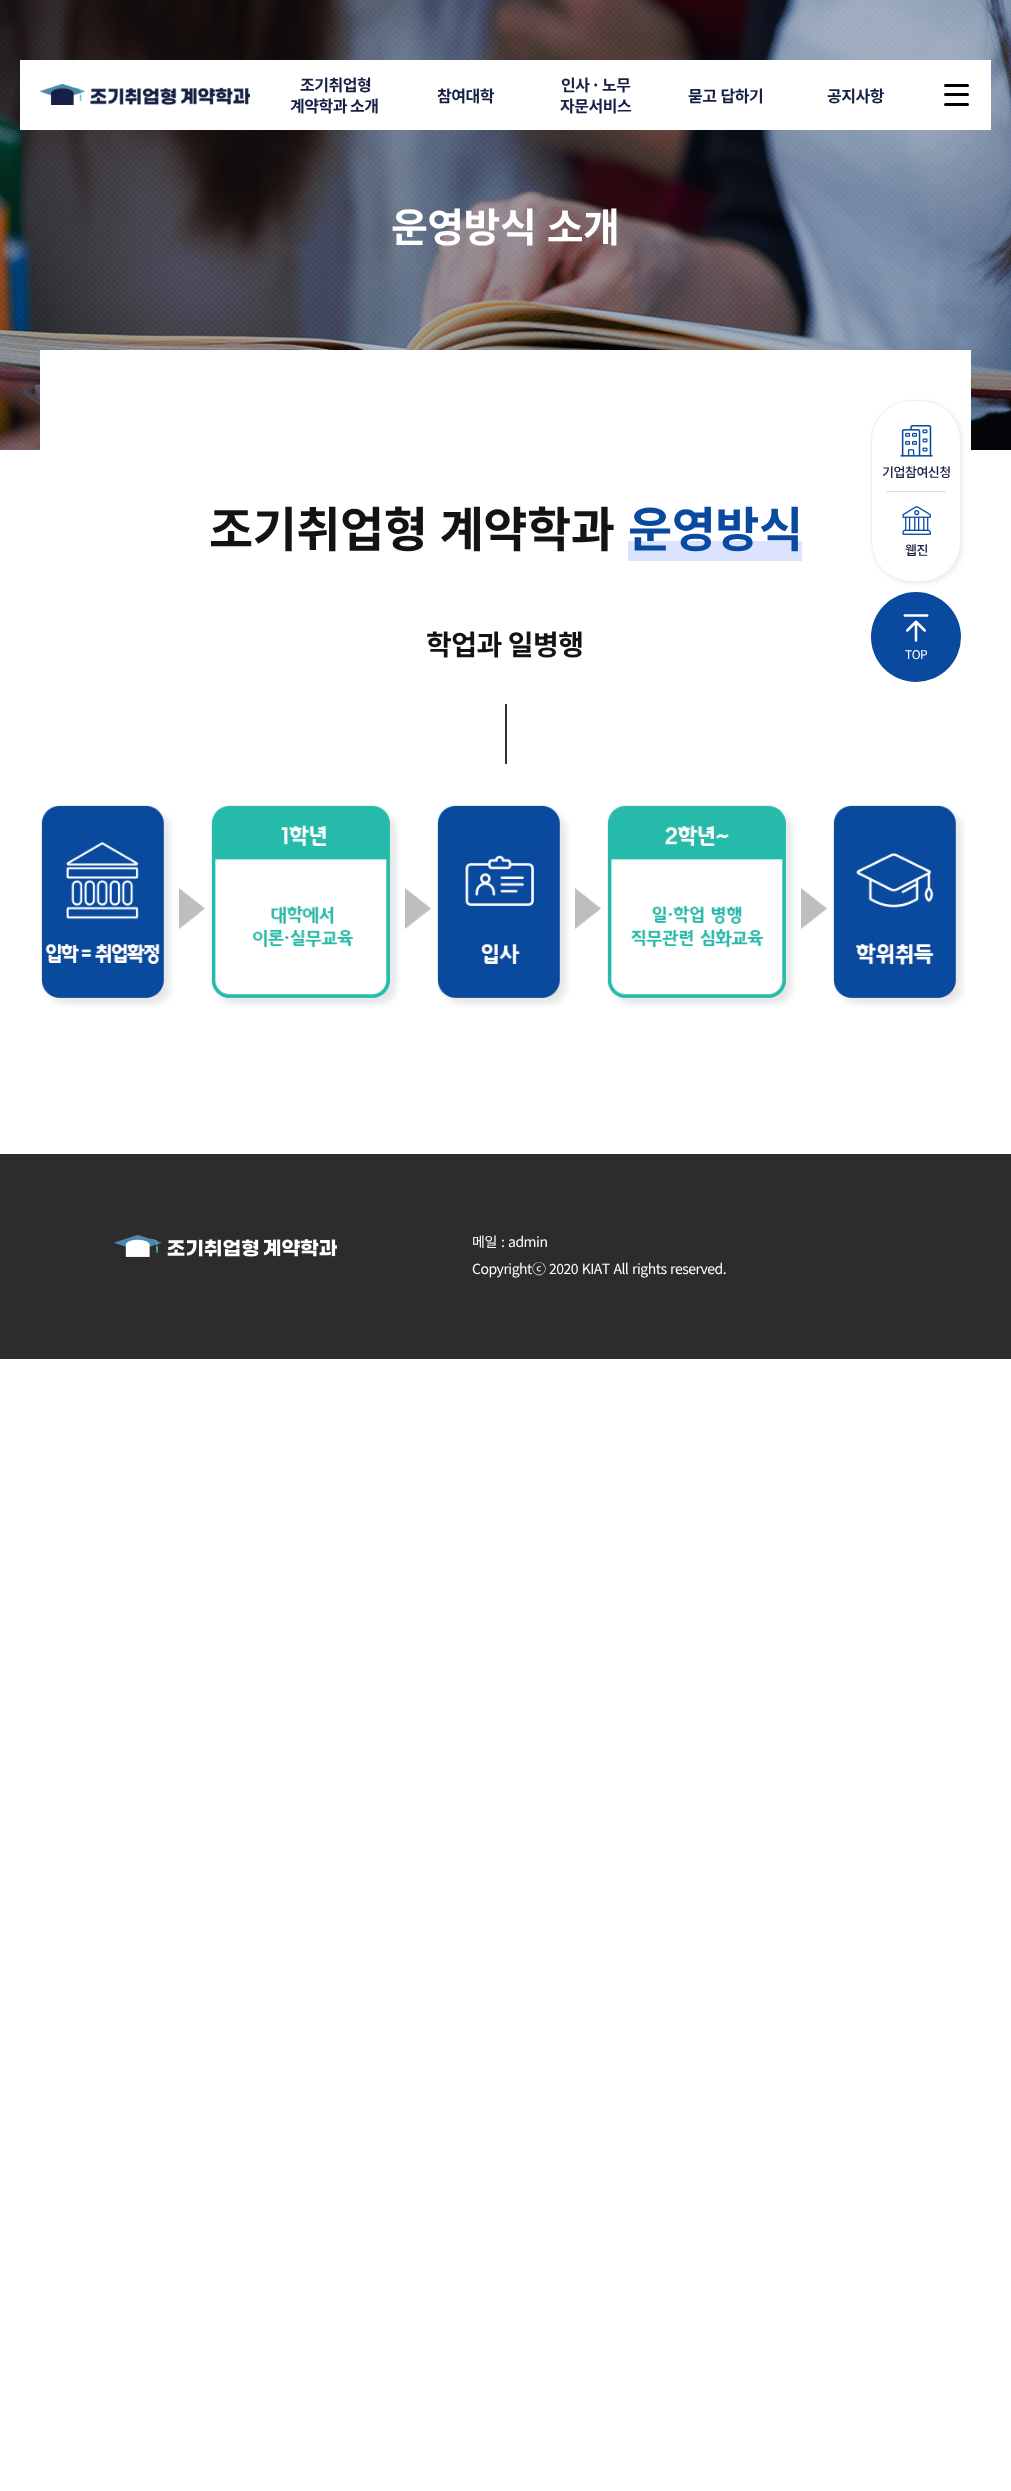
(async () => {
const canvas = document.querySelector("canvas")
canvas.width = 1011
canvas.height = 2491
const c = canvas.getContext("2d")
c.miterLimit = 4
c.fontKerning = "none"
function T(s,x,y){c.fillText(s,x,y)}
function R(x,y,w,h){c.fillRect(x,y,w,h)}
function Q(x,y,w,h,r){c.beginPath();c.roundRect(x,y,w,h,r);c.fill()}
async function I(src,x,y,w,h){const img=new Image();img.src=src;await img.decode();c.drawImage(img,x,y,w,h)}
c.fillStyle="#fff"
R(0,0,1011,2491)
await I("2.png",0,0,1011,450)
R(20,60,971,70)
await I("1.png",40,84,210,21)
c.letterSpacing="-0.5px"
c.font="bold 16px Noto Sans KR"
c.fillStyle="#161f44"
T("조기취업형",300,91)
T("계약학과 소개",290,112)
T("참여대학",437,102)
T("인사",561,91)
c.font="bold 16px 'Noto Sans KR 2'"
T("·",591,91)
c.font="bold 16px Noto Sans KR"
T("노무",602,91)
T("자문서비스",560,112)
c.wordSpacing="1px"
T("묻고 답하기",688,102)
c.wordSpacing="0px"
T("공지사항",827,102)
c.fillStyle="#000"
Q(944,84,25,3,1.5)
Q(944,93,25,3,1.5)
Q(944,103,25,3,1.5)
c.wordSpacing="2px"
c.font="bold 40px Noto Sans KR"
c.fillStyle="#fff"
T("운영방식 소개",391,242)
R(40,350,931,100)
c.font="bold 48px Noto Sans KR"
c.fillStyle="#131313"
T("조기취업형 계약학과",209,547)
c.fillStyle="#dce3ff"
R(628,541,174,20)
c.wordSpacing="0px"
c.fillStyle="#094a9e"
T("운영방식",628,547)
c.font="bold 28px Noto Sans KR"
c.fillStyle="#131313"
T("학업과 일병행",426,655)
c.fillStyle="#333"
R(505,704,2,60)
await I("3.png",41,805,132,202)
await I("4.png",179,888,26,41)
await I("5.png",211,805,188,202)
await I("4.png",405,888,26,41)
await I("6.png",437,805,132,202)
await I("4.png",575,888,26,41)
await I("7.png",607,805,188,202)
await I("8.png",801,888,26,41)
await I("9.png",833,805,132,202)
c.fillStyle="#094a9e"
c.beginPath()
c.arc(916,637,45,0,7)
c.fill()
c.fillStyle="#eee"
c.filter="blur(2.5px)"
c.beginPath()
c.roundRect(873,402,90,182,40)
c.fill()
c.filter="none"
c.fillStyle="#fff"
c.beginPath()
c.roundRect(871.5,400.5,89,181,39.5)
c.fill()
c.strokeStyle="#eee"
c.stroke()
await I("10.png",900,425,33,32)
c.font="500 13px Noto Sans KR"
c.fillStyle="#161f44"
T("기업참여신청",882,477)
c.fillStyle="#ddd"
R(886,491,60,1)
await I("11.png",902,506,29,29)
c.fillStyle="#161f44"
T("웹진",905,555)
await I("12.png",903,614,26,28)
c.font="12px 'Noto Sans KR 2'"
c.fillStyle="#fff"
T("TOP",905,659)
c.fillStyle="#2c2c2c"
R(0,1154,1011,205)
await I("13.png",114,1235,223,22)
c.font="14px Noto Sans KR"
c.fillStyle="#fff"
T("메일",472,1247)
c.wordSpacing="1px"
c.font="14px 'Noto Sans KR 2'"
T(": admin",501,1247)
c.wordSpacing="0px"
T("Copyright",472,1274)
c.font="14px Noto Sans KR"
T("ⓒ",532,1274)
c.wordSpacing="1px"
c.font="14px 'Noto Sans KR 2'"
T("2020 KIAT All rights reserved.",549,1274)
})()
